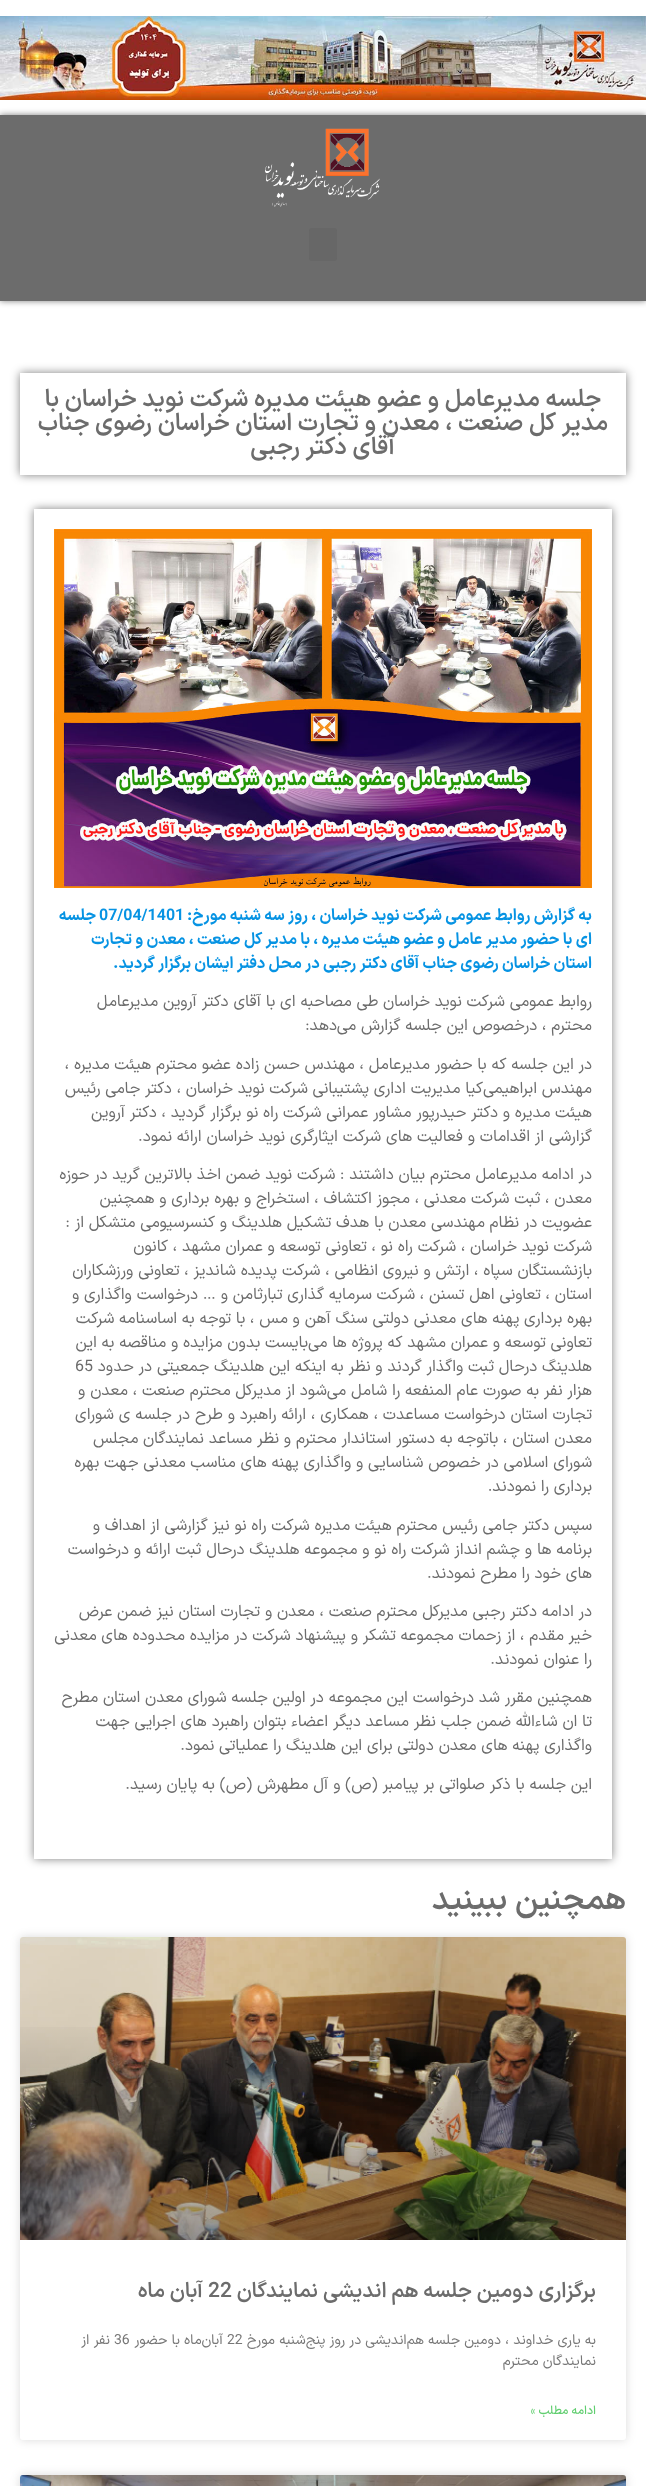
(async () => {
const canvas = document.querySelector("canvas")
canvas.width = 646
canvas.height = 2486
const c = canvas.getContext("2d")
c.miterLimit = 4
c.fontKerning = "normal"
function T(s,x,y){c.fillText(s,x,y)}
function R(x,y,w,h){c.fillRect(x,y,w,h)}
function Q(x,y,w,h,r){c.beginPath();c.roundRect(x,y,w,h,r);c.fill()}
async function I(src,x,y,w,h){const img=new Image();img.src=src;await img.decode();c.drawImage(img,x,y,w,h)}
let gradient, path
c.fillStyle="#fff"
R(0,0,646,2486)
await I("1.png",0,16,646,84)
c.fillStyle="#00000080"
c.filter="blur(3px)"
c.beginPath()
c.rect(0,115,646,186)
c.fill()
c.filter="none"
c.fillStyle="#6c6c6c"
R(0,115,646,186)
await I("2.png",265,128,115,79)
c.fillStyle="#676767"
Q(309,228,28,33,3)
c.save()
path = new Path2D("M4 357h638v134h-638zm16 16h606v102h-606z")
c.clip(path,"evenodd")
c.fillStyle="#00000080"
c.filter="blur(5px)"
c.beginPath()
c.rect(20,373,606,102)
c.fill()
c.filter="none"
c.restore()
c.direction="rtl"
c.font="600 24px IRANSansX"
c.fillStyle="#6c6c6c"
T("جلسه مدیرعامل و عضو هیئت مدیره شرکت نوید خراسان با",601,406)
T("مدیر کل صنعت ، معدن و تجارت استان خراسان رضوی جناب",608,430)
T("آقای دکتر رجبی",395,454)
c.save()
path = new Path2D("M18 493h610v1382h-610zm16 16h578v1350h-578z")
c.clip(path,"evenodd")
c.fillStyle="#00000080"
c.filter="blur(5px)"
c.beginPath()
c.rect(34,509,578,1350)
c.fill()
c.filter="none"
c.restore()
await I("3.png",54,529,538,359)
c.font="bold 16px IRANSansX"
c.fillStyle="#0693e3"
T("به گزارش روابط عمومی شرکت نوید خراسان ، روز سه شنبه مورخ:",592,920)
c.direction="ltr"
T("07/04/1401",99,920)
c.direction="rtl"
T("جلسه",96,920)
T("ای با حضور مدیر عامل و عضو هیئت مدیره ، با مدیر کل صنعت ، معدن و تجارت",592,944)
T("استان خراسان رضوی جناب آقای دکتر رجبی در محل دفتر ایشان برگزار گردید.",592,968)
c.font="16px IRANSansX"
c.fillStyle="#6c6c6c"
T("روابط عمومی شرکت نوید خراسان طی مصاحبه ای با آقای دکتر آروین مدیرعامل",592,1006)
T("محترم ، درخصوص این جلسه گزارش می‌دهد:",592,1030)
T("در این جلسه که با حضور مدیرعامل ، مهندس حسن زاده عضو محترم هیئت مدیره ،",592,1069)
T("مهندس ابراهیمی‌کیا مدیریت اداری پشتیبانی شرکت نوید خراسان ، دکتر جامی رئیس",592,1093)
T("هیئت مدیره و دکتر حیدرپور مشاور عمرانی شرکت راه نو برگزار گردید ، دکتر آروین",592,1117)
T("گزارشی از اقدامات و فعالیت های شرکت ایثارگری نوید خراسان ارائه نمود.",592,1141)
T("در ادامه مدیرعامل محترم بیان داشتند : شرکت نوید ضمن اخذ بالاترین گرید در حوزه",592,1179)
T("معدن ، ثبت شرکت معدنی ، مجوز اکتشاف ، استخراج و بهره برداری و همچنین",592,1203)
T("عضویت در نظام مهندسی معدن با هدف تشکیل هلدینگ و کنسرسیومی متشکل از :",592,1227)
T("شرکت نوید خراسان ، شرکت راه نو ، تعاونی توسعه و عمران مشهد ، کانون",592,1251)
T("بازنشستگان سپاه ، ارتش و نیروی انظامی ، شرکت پدیده شاندیز ، تعاونی ورزشکاران",592,1275)
T("استان ، تعاونی اهل تسنن ، شرکت سرمایه گذاری تبارثامن و … درخواست واگذاری و",592,1299)
T("بهره برداری پهنه های معدنی دولتی سنگ آهن و مس ، با توجه به اساسنامه شرکت",592,1323)
T("تعاونی توسعه و عمران مشهد که پروژه ها می‌بایست بدون مزایده و مناقصه به این",592,1347)
T("هلدینگ درحال ثبت واگذار گردند و نظر به اینکه این هلدینگ جمعیتی در حدود",592,1371)
c.direction="ltr"
T("65",75,1371)
c.direction="rtl"
T("هزار نفر به صورت عام المنفعه را شامل می‌شود از مدیرکل محترم صنعت ، معدن و",592,1395)
T("تجارت استان درخواست مساعدت ، همکاری ، ارائه راهبرد و طرح در جلسه ی شورای",592,1419)
T("معدن استان ، باتوجه به دستور استاندار محترم و نظر مساعد نمایندگان مجلس",592,1443)
T("شورای اسلامی در خصوص شناسایی و واگذاری پهنه های مناسب معدنی جهت بهره",592,1467)
T("برداری را نمودند.",592,1491)
T("سپس دکتر جامی رئیس محترم هیئت مدیره شرکت راه نو نیز گزارشی از اهداف و",592,1530)
T("برنامه ها و چشم انداز شرکت راه نو و مجموعه هلدینگ درحال ثبت ارائه و درخواست",592,1554)
T("های خود را مطرح نمودند.",592,1578)
T("در ادامه دکتر رجبی مدیرکل محترم صنعت ، معدن و تجارت استان نیز ضمن عرض",592,1616)
T("خیر مقدم ، از زحمات مجموعه تشکر و پیشنهاد شرکت در مزایده محدوده های معدنی",592,1640)
T("را عنوان نمودند.",592,1664)
T("همچنین مقرر شد درخواست این مجموعه در اولین جلسه شورای معدن استان مطرح",592,1702)
T("تا ان شاءالله ضمن جلب نظر مساعد دیگر اعضاء بتوان راهبرد های اجرایی جهت",592,1726)
T("واگذاری پهنه های معدن دولتی برای این هلدینگ را عملیاتی نمود.",592,1750)
T("این جلسه با ذکر صلواتی بر پیامبر (ص) و آل مطهرش (ص) به پایان رسید.",592,1789)
c.font="600 32px IRANSansX"
T("همچنین ببینید",626,1909)
c.fillStyle="#00000026"
c.filter="blur(5px)"
c.beginPath()
c.roundRect(20,1937,606,503,3)
c.fill()
c.filter="none"
c.fillStyle="#fff"
Q(20,1937,606,503,3)
await I("4.png",20,1937,606,303)
gradient = c.createLinearGradient(323,2240,323,1937)
gradient.addColorStop(0,"#00000059")
gradient.addColorStop(.75,"#00000000")
c.fillStyle = gradient
R(20,2027,606,213)
c.font="600 21px IRANSansX"
c.fillStyle="#6c6c6c"
T("برگزاری دومین جلسه هم اندیشی نمایندگان",596,2297)
c.direction="ltr"
T("22",208,2297)
c.direction="rtl"
T("آبان ماه",203,2297)
c.font="14px IRANSansX"
c.fillStyle="#777"
T("به یاری خداوند ، دومین جلسه هم‌اندیشی در روز پنج‌شنبه مورخ",596,2344)
c.direction="ltr"
T("22",227,2344)
c.direction="rtl"
T("آبان‌ماه با حضور",223,2344)
c.direction="ltr"
T("36",114,2344)
c.direction="rtl"
T("نفر از",110,2344)
T("نمایندگان محترم",596,2365)
c.font="500 12px IRANSansX"
c.fillStyle="#61ce70"
T("ادامه مطلب »",596,2414)
c.fillStyle="#00000026"
c.filter="blur(5px)"
c.beginPath()
c.roundRect(20,2475,606,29,3)
c.fill()
c.filter="none"
await I("5.png",20,2475,606,11)
})()
